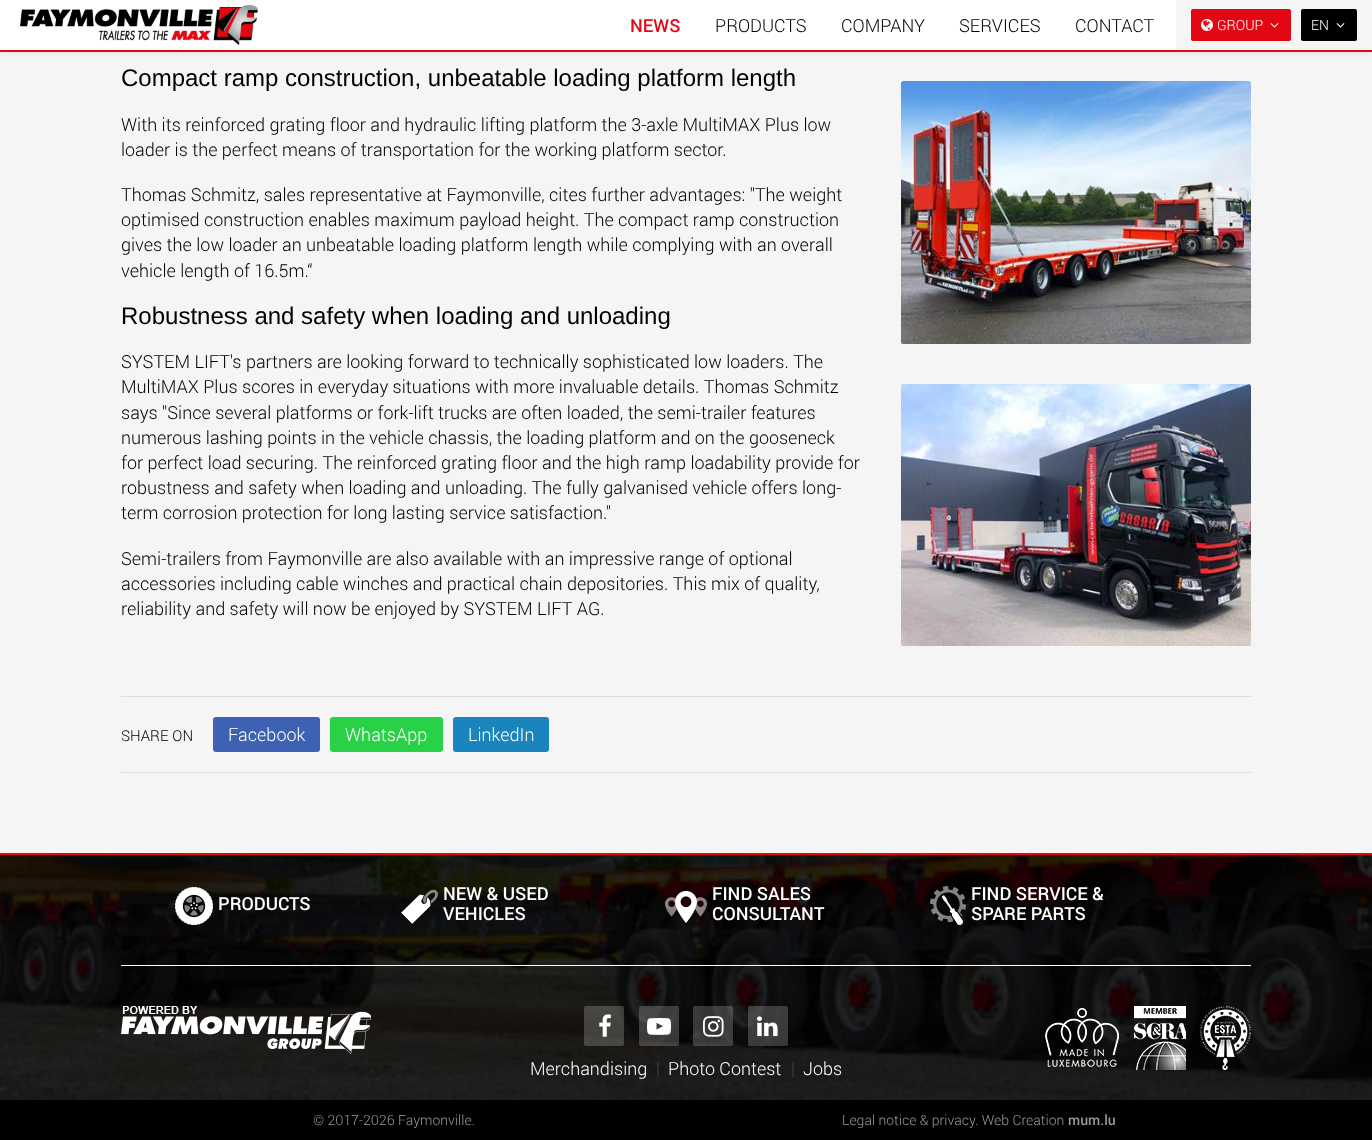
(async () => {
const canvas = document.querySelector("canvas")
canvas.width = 1372
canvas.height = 1140
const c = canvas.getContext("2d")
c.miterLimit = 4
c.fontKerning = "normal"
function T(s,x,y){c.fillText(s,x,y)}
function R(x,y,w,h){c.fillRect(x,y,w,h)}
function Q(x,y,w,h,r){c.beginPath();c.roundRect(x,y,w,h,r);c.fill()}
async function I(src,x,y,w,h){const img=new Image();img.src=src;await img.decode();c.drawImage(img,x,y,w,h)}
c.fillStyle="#f5f5f5"
R(0,0,1372,1140)
c.fillStyle="#0000001a"
c.filter="blur(5px)"
c.beginPath()
c.rect(0,0,1372,52)
c.fill()
c.filter="none"
c.fillStyle="#fff"
R(0,0,1176,50)
c.fillStyle="#e30613"
R(0,50,1372,2)
await I("1.png",20,5,238,40)
c.font="500 18px Roboto"
T("NEWS",630,32)
c.font="300 18px Roboto"
c.fillStyle="#000"
T("PRODUCTS",715,32)
T("COMPANY",841,32)
T("SERVICES",959,32)
T("CONTACT",1075,32)
c.fillStyle="#f5f5f5"
R(1176,0,196,50)
c.fillStyle="#e30613"
Q(1191,9,100,32,2)
await I("2.png",1201,19,12,12)
c.font="300 14px Roboto"
c.fillStyle="#fff"
T("GROUP",1217,30)
await I("3.png",1270,23,9,5)
c.fillStyle="#000"
Q(1301,9,56,32,2)
c.fillStyle="#fff"
T("EN",1311,30)
await I("4.png",1336,23,9,5)
c.font="24px Liberation Sans"
c.fillStyle="#000"
T("Compact ramp construction, unbeatable loading platform length",121,86)
c.font="300 18px Roboto"
T("With its reinforced grating floor and hydraulic lifting platform the 3-axle MultiMAX Plus low",121,131)
T("loader is the perfect means of transportation for the working platform sector.",121,156)
T("Thomas Schmitz, sales representative at Faymonville, cites further advantages: \"The weight",121,201)
T("optimised construction enables maximum payload height. The compact ramp construction",121,226)
T("gives the low loader an unbeatable loading platform length while complying with an overall",121,251)
T("vehicle length of 16.5m.“",121,277)
c.font="24px Liberation Sans"
T("Robustness and safety when loading and unloading",121,324)
c.font="300 18px Roboto"
T("SYSTEM LIFT's partners are looking forward to technically sophisticated low loaders. The",121,368)
T("MultiMAX Plus scores in everyday situations with more invaluable details. Thomas Schmitz",121,393)
T("says \"Since several platforms or fork-lift trucks are often loaded, the semi-trailer features",121,419)
T("numerous lashing points in the vehicle chassis, the loading platform and on the gooseneck",121,444)
T("for perfect load securing. The reinforced grating floor and the high ramp loadability provide for",121,469)
T("robustness and safety when loading and unloading. The fully galvanised vehicle offers long-",121,494)
T("term corrosion protection for long lasting service satisfaction.\"",121,519)
T("Semi-trailers from Faymonville are also available with an impressive range of optional",121,565)
T("accessories including cable winches and practical chain depositories. This mix of quality,",121,590)
T("reliability and safety will now be enjoyed by SYSTEM LIFT AG.",121,615)
await I("5.png",901,81,350,263)
await I("6.png",901,384,350,262)
c.fillStyle="#ddd"
R(121,696,1130,1)
R(121,772,1130,1)
c.font="300 15px Roboto"
c.fillStyle="#000"
T("SHARE ON",121,741)
c.fillStyle="#3d62b3"
Q(213,717,107,35,3)
c.font="300 18px Roboto"
c.fillStyle="#fff"
T("Facebook",228,741)
c.fillStyle="#28d146"
Q(330,717,113,35,3)
c.fillStyle="#fff"
T("WhatsApp",345,741)
c.fillStyle="#1985bc"
Q(453,717,96,35,3)
c.fillStyle="#fff"
T("LinkedIn",468,741)
c.fillStyle="#000"
R(0,1100,1372,40)
c.fillStyle="#e30613"
R(0,853,1372,2)
await I("7.png",0,855,1372,245)
await I("8.png",175,887,38,38)
c.font="500 18px Roboto"
c.fillStyle="#fff"
T("PRODUCTS",218,910)
await I("9.png",401,889,37,35)
T("NEW & USED",443,900)
T("VEHICLES",443,920)
await I("10.png",665,891,42,32)
T("FIND SALES",712,900)
T("CONSULTANT",712,920)
await I("11.png",930,886,36,39)
T("FIND SERVICE &",971,900)
T("SPARE PARTS",971,920)
R(121,965,1130,1)
await I("12.png",121,1006,250,48)
c.fillStyle="#ffffff33"
Q(584,1006,40,40,2)
await I("13.png",599,1014,12,23)
Q(639,1006,40,40,2)
await I("14.png",647,1018,24,17)
Q(693,1006,40,40,2)
await I("15.png",703,1016,21,21)
Q(748,1006,40,40,2)
await I("16.png",757,1016,21,21)
await I("17.png",1045,1008,74,59)
await I("18.png",1134,1006,52,64)
await I("19.png",1200,1006,51,64)
c.font="300 18px Roboto"
c.fillStyle="#fff"
T("Merchandising",530,1075)
c.fillStyle="#484846"
T("|",656,1075)
c.fillStyle="#fff"
T("Photo Contest",668,1075)
c.fillStyle="#484846"
T("|",791,1075)
c.fillStyle="#fff"
T("Jobs",803,1075)
c.font="300 14px Roboto"
c.fillStyle="#999"
T("© 2017-2026 Faymonville.",313,1125)
T("Legal notice & privacy",842,1125)
T(". Web Creation",975,1125)
c.font="500 14px Roboto"
T("mum.lu",1068,1125)
})()
